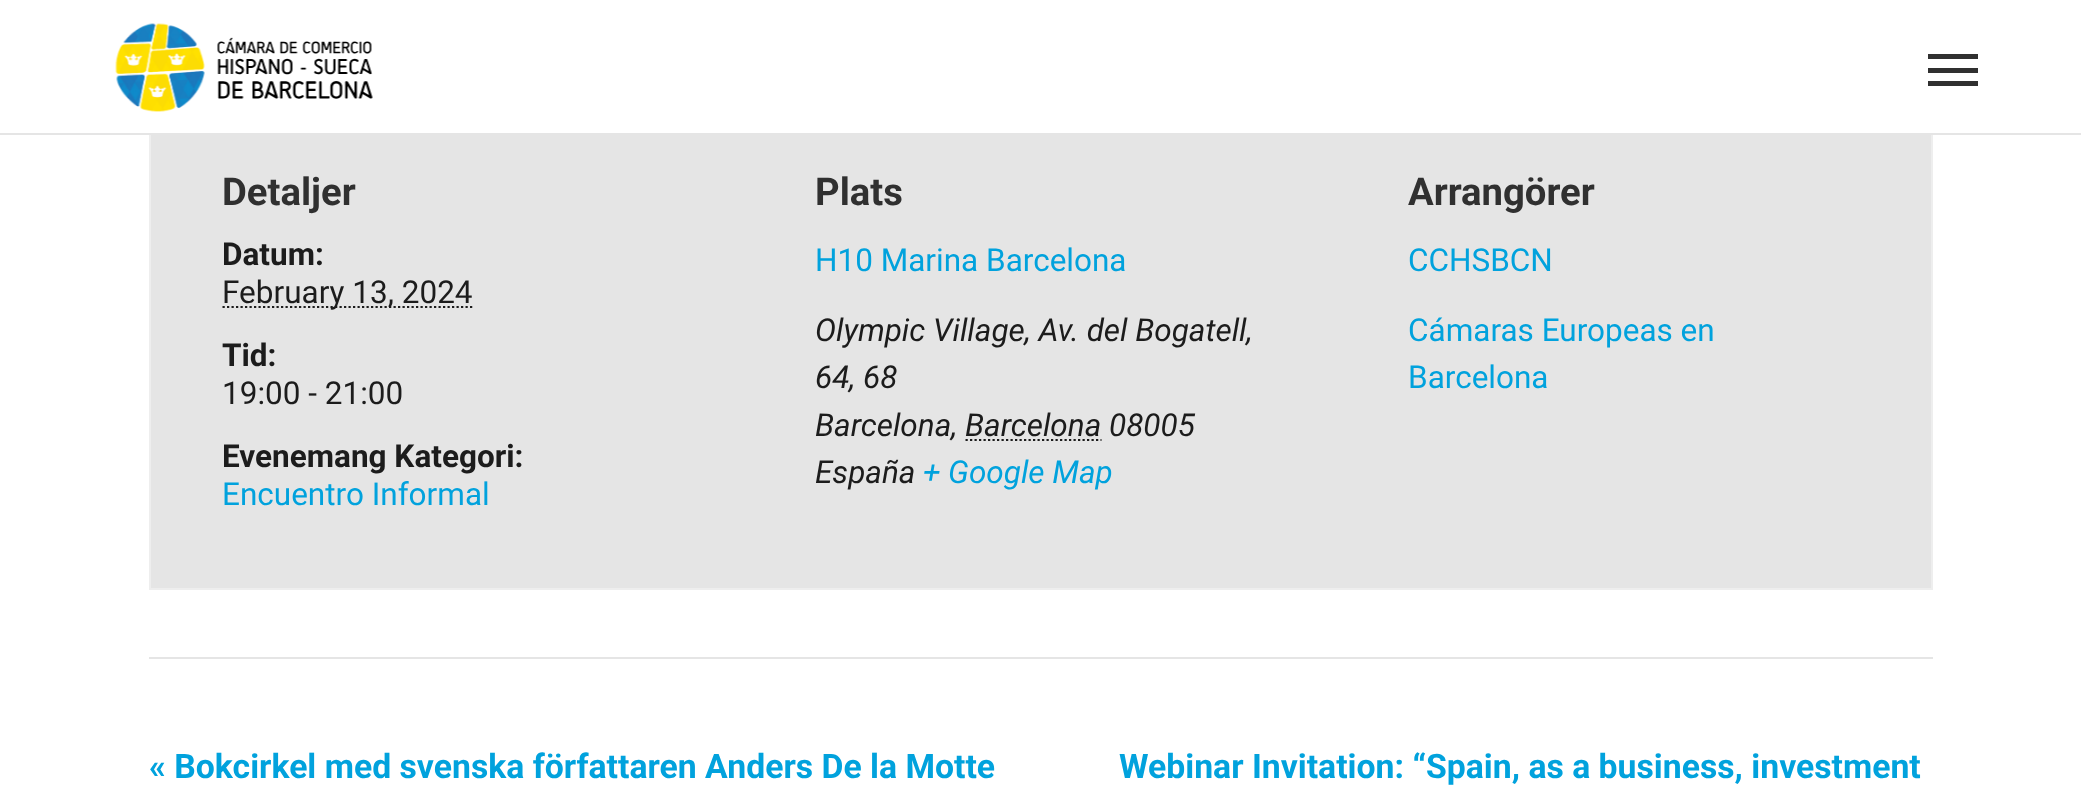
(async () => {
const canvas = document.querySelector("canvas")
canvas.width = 2081
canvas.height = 805
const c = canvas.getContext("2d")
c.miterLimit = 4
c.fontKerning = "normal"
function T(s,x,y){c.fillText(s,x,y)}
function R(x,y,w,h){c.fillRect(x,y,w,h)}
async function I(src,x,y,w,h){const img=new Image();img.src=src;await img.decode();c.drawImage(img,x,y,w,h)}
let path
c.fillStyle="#fff"
R(0,0,2081,805)
c.fillStyle="#e5e5e5"
R(151,135,1780,453)
c.strokeStyle="#eee"
c.lineWidth=2
c.strokeRect(150,123,1782,466)
c.fillStyle="#fff"
R(149,122,1784,11)
c.fillStyle="#e5e5e5"
R(0,133,2081,2)
await I("1.png",115,23,258,89)
c.fillStyle="#303030"
R(1928,68,50,5)
R(1928,54,50,5)
R(1928,81,50,5)
c.font="bold 38.25px Roboto"
T("Detaljer",222,205)
c.font="bold 31.5px Roboto"
c.fillStyle="#1c1c1c"
T("Datum:",222,265)
path = new Path2D("M222.5 307h250.5")
c.strokeStyle="#1c1c1c"
c.lineWidth=2.2
c.setLineDash([2.25,2.25])
c.stroke(path)
c.font="31.5px Roboto"
T("February 13, 2024",222,303)
c.font="bold 31.5px Roboto"
T("Tid:",222,366)
c.font="31.5px Roboto"
T("19:00 - 21:00",222,404)
c.font="bold 31.5px Roboto"
T("Evenemang Kategori:",222,467)
c.font="31.5px Roboto"
c.fillStyle="#01a2dd"
T("Encuentro Informal",222,505)
c.font="bold 38.25px Roboto"
c.fillStyle="#303030"
T("Plats",815,205)
c.font="31.5px Roboto"
c.fillStyle="#01a2dd"
T("H10 Marina Barcelona",815,271)
c.font="italic 31.5px Roboto"
c.fillStyle="#1c1c1c"
T("Olympic Village, Av. del Bogatell,",815,341)
T("64, 68",815,388)
T("Barcelona, Barcelona 08005",815,436)
path = new Path2D("M965.5 440h136")
c.stroke(path)
T("España",815,483)
c.fillStyle="#01a2dd"
T("+ Google Map",923,483)
c.font="bold 38.25px Roboto"
c.fillStyle="#303030"
T("Arrangörer",1408,205)
c.font="31.5px Roboto"
c.fillStyle="#01a2dd"
T("CCHSBCN",1408,271)
T("Cámaras Europeas en",1408,341)
T("Barcelona",1408,388)
c.fillStyle="#e5e5e5"
R(149,657,1784,2)
c.font="bold 33.75px Roboto"
c.fillStyle="#01a2dd"
T("« Bokcirkel med svenska författaren Anders De la Motte",149,778)
T("Webinar Invitation: “Spain, as a business, investment",1119,778)
})()
